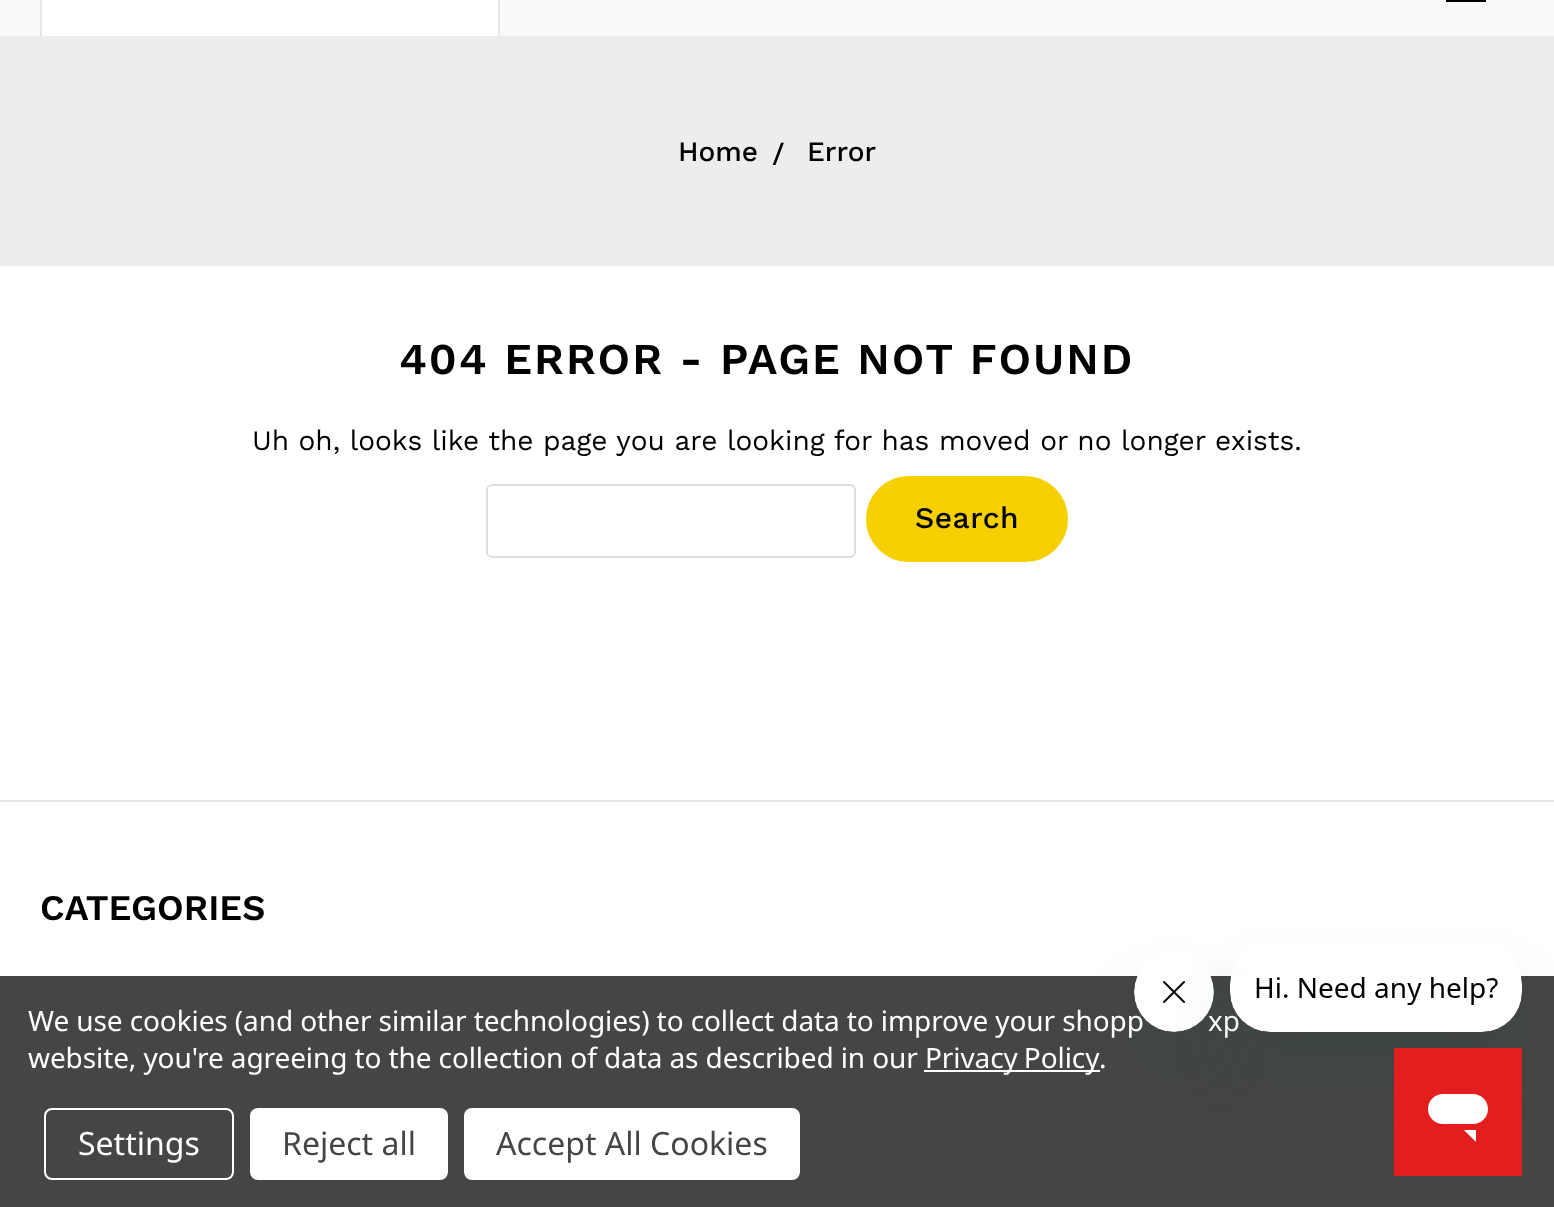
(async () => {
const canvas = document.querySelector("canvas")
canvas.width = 1554
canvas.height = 1207
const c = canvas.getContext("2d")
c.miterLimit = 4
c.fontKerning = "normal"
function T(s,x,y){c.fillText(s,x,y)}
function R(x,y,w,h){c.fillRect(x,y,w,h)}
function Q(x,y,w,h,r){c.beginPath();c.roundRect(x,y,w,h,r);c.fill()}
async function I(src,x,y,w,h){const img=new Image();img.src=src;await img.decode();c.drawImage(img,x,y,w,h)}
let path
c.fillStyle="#fff"
R(0,0,1554,1207)
c.fillStyle="#fafafa"
R(0,0,1554,36)
c.fillStyle="#fff"
R(42,0,456,36)
c.fillStyle="#e6e6e6"
path = new Path2D("M500-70v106h-2v-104z")
c.fill(path)
path = new Path2D("M40 36v-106l2 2v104z")
c.fill(path)
c.fillStyle="#000"
R(1446,0,40,2)
c.fillStyle="#ededed"
R(0,36,1554,230)
c.font="500 28px Work Sans"
c.fillStyle="#000"
T("Home",678,161)
T("/",772,163)
T("Error",807,161)
c.letterSpacing="2px"
c.font="600 44px Work Sans"
T("404 ERROR - PAGE NOT FOUND",399,374)
c.letterSpacing="0px"
c.font="28px Work Sans"
T("Uh oh, looks like the page you are looking for has moved or no longer exists.",252,450)
c.beginPath()
c.roundRect(487,485,368,72,5)
c.strokeStyle="#dfdfdf"
c.lineWidth=2
c.stroke()
c.fillStyle="#f6d000"
c.beginPath()
c.roundRect(867,477,200,84,42)
c.fill()
c.strokeStyle="#f6d000"
c.stroke()
c.letterSpacing="0.5px"
c.font="500 30px Work Sans"
c.fillStyle="#000"
T("Search",915,528)
c.fillStyle="#e6e6e6"
R(0,800,1554,2)
c.letterSpacing="0px"
c.font="600 36px Work Sans"
c.fillStyle="#000"
T("CATEGORIES",40,920)
c.fillStyle="#454545"
R(0,976,1554,231)
c.fillStyle="#fff"
R(924,1070,176,2)
c.save()
path = new Path2D("M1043 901h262v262h-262zm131 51c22 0 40 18 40 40c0 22-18 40-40 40c-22 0-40-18-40-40c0-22 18-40 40-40z")
c.clip(path,"evenodd")
c.fillStyle="#17494d26"
c.filter="blur(30px)"
c.beginPath()
c.roundRect(1134,992,80,80,40)
c.fill()
c.filter="none"
c.restore()
c.letterSpacing="-0.1px"
c.font="28px Noto Sans"
T("We use cookies (and other similar technologies) to collect data to improve your shopp",28,1031)
T("xp",1208,1031)
await I("2.png",1134,976,80,56)
c.save()
path = new Path2D("M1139 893h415v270h-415zm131 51h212c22 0 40 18 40 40v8c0 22-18 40-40 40h-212c-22 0-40-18-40-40v-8c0-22 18-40 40-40z")
c.clip(path,"evenodd")
c.fillStyle="#17494d26"
c.filter="blur(30px)"
c.beginPath()
c.roundRect(1230,984,292,88,40)
c.fill()
c.filter="none"
c.restore()
await I("1.png",1230,976,292,56)
await I("3.png",1394,1048,128,128)
T("website, you're agreeing to the collection of data as described in our",28,1068)
c.wordSpacing="-1px"
T("Privacy Policy",925,1068)
c.wordSpacing="0px"
T(".",1099,1068)
c.beginPath()
c.roundRect(45,1109,188,70,7)
c.strokeStyle="#fff"
c.stroke()
c.letterSpacing="0px"
c.font="32px Noto Sans"
T("Settings",78,1155)
Q(250,1108,198,72,8)
c.fillStyle="#454545"
T("Reject all",282,1155)
c.fillStyle="#fff"
Q(464,1108,336,72,8)
c.fillStyle="#454545"
T("Accept All Cookies",496,1155)
})()
